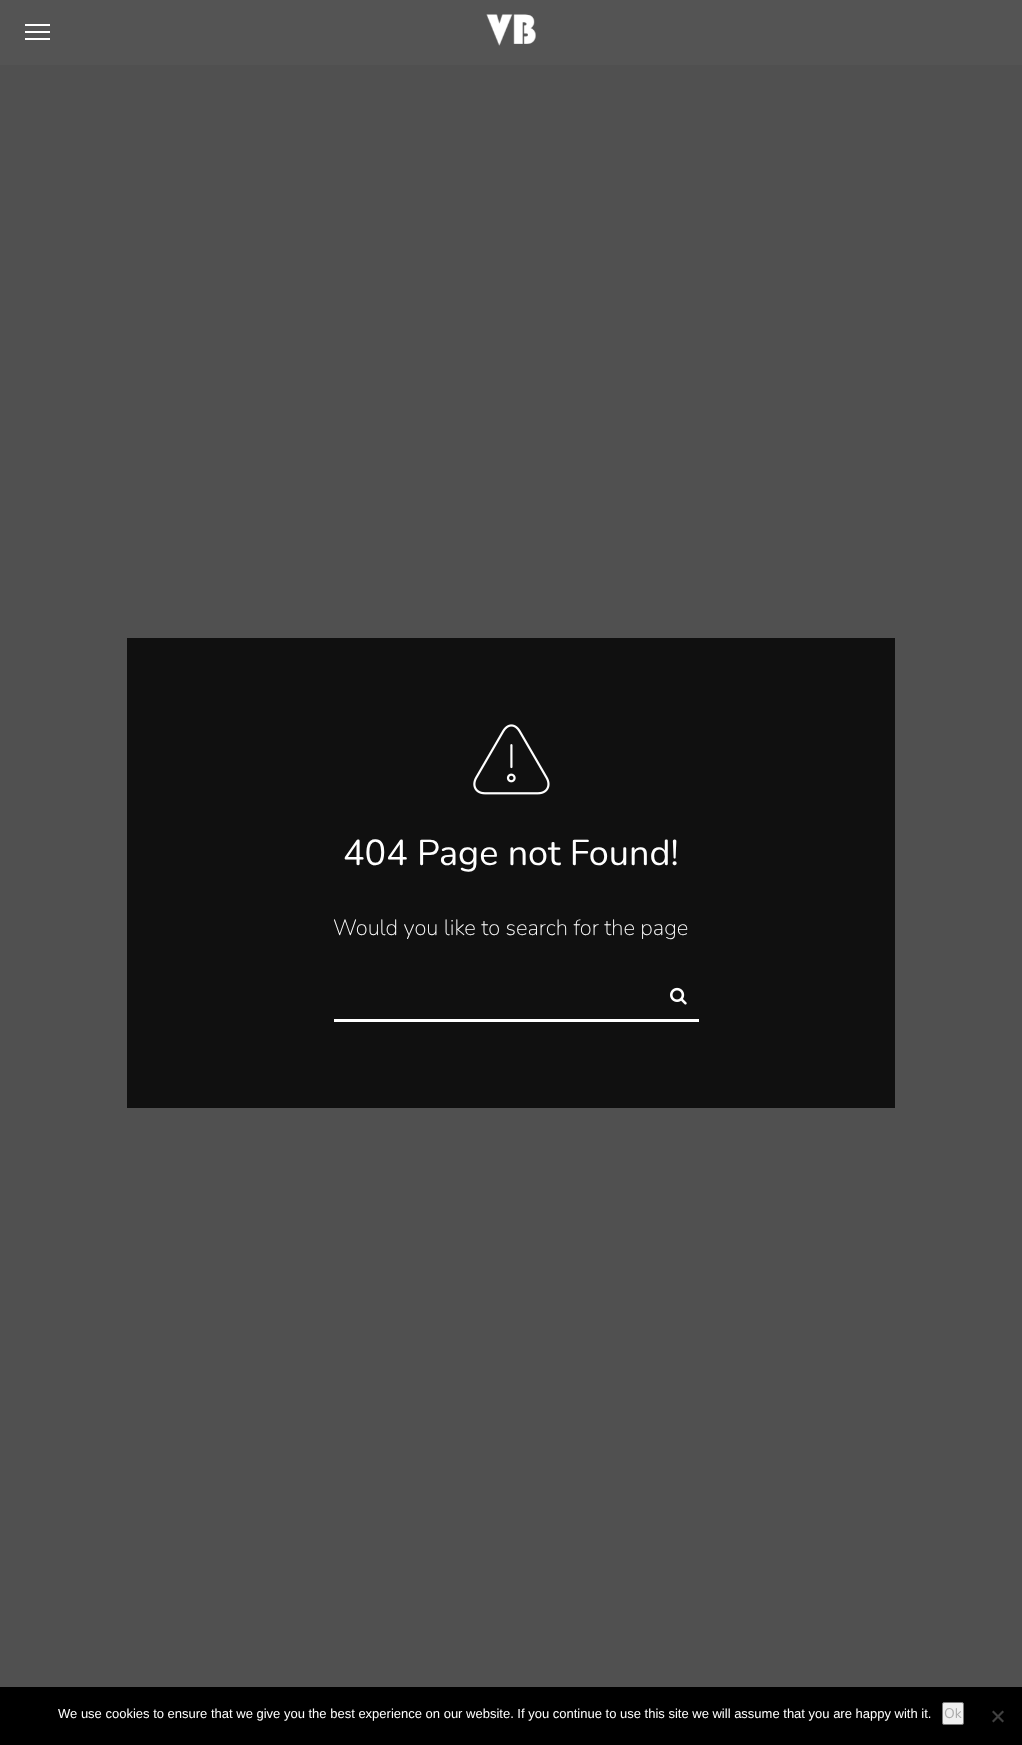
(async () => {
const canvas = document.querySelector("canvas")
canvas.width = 1022
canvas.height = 1745
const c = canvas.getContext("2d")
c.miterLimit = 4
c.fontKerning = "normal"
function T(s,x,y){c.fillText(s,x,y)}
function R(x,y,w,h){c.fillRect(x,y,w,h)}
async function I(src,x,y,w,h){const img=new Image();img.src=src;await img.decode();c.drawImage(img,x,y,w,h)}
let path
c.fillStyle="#505050"
R(0,0,1022,1745)
c.fillStyle="#545454"
R(0,0,1022,65)
await I("1.png",486,14,50,32)
c.fillStyle="#fff"
R(25,31,25,2)
R(25,24,25,2)
R(25,38,25,2)
c.fillStyle="#101010"
R(127,638,768,470)
await I("2.png",473,724,77,71)
c.font="36px Nunito"
c.fillStyle="#fff"
T("404 Page not Found!",343,865)
c.font="200 22px Nunito"
T("Would you like to search for the page",333,935)
await I("3.png",670,987,17,18)
R(334,1019,365,3)
c.fillStyle="#000"
R(0,1687,1022,58)
c.font="13px Liberation Sans"
c.fillStyle="#fff"
T("We use cookies to ensure that we give you the best experience on our website. If you continue to use this site we will assume that you are happy with it.",58,1718)
c.fillStyle="#efefef"
c.beginPath()
c.roundRect(942.5,1702.5,21,22,1.5)
c.fill()
c.strokeStyle="#767676"
c.stroke()
c.font="14px Nunito"
c.fillStyle="#aaa"
T("Ok",944,1718)
c.fillStyle="#404040"
path = new Path2D("M1002.5 1710.5l1.5 1.5l-10.5 10.5l-1.5-1.5z")
c.fill(path)
path = new Path2D("M992 1712l1.5-1.5l10.5 10.5l-1.5 1.5z")
c.fill(path)
})()
